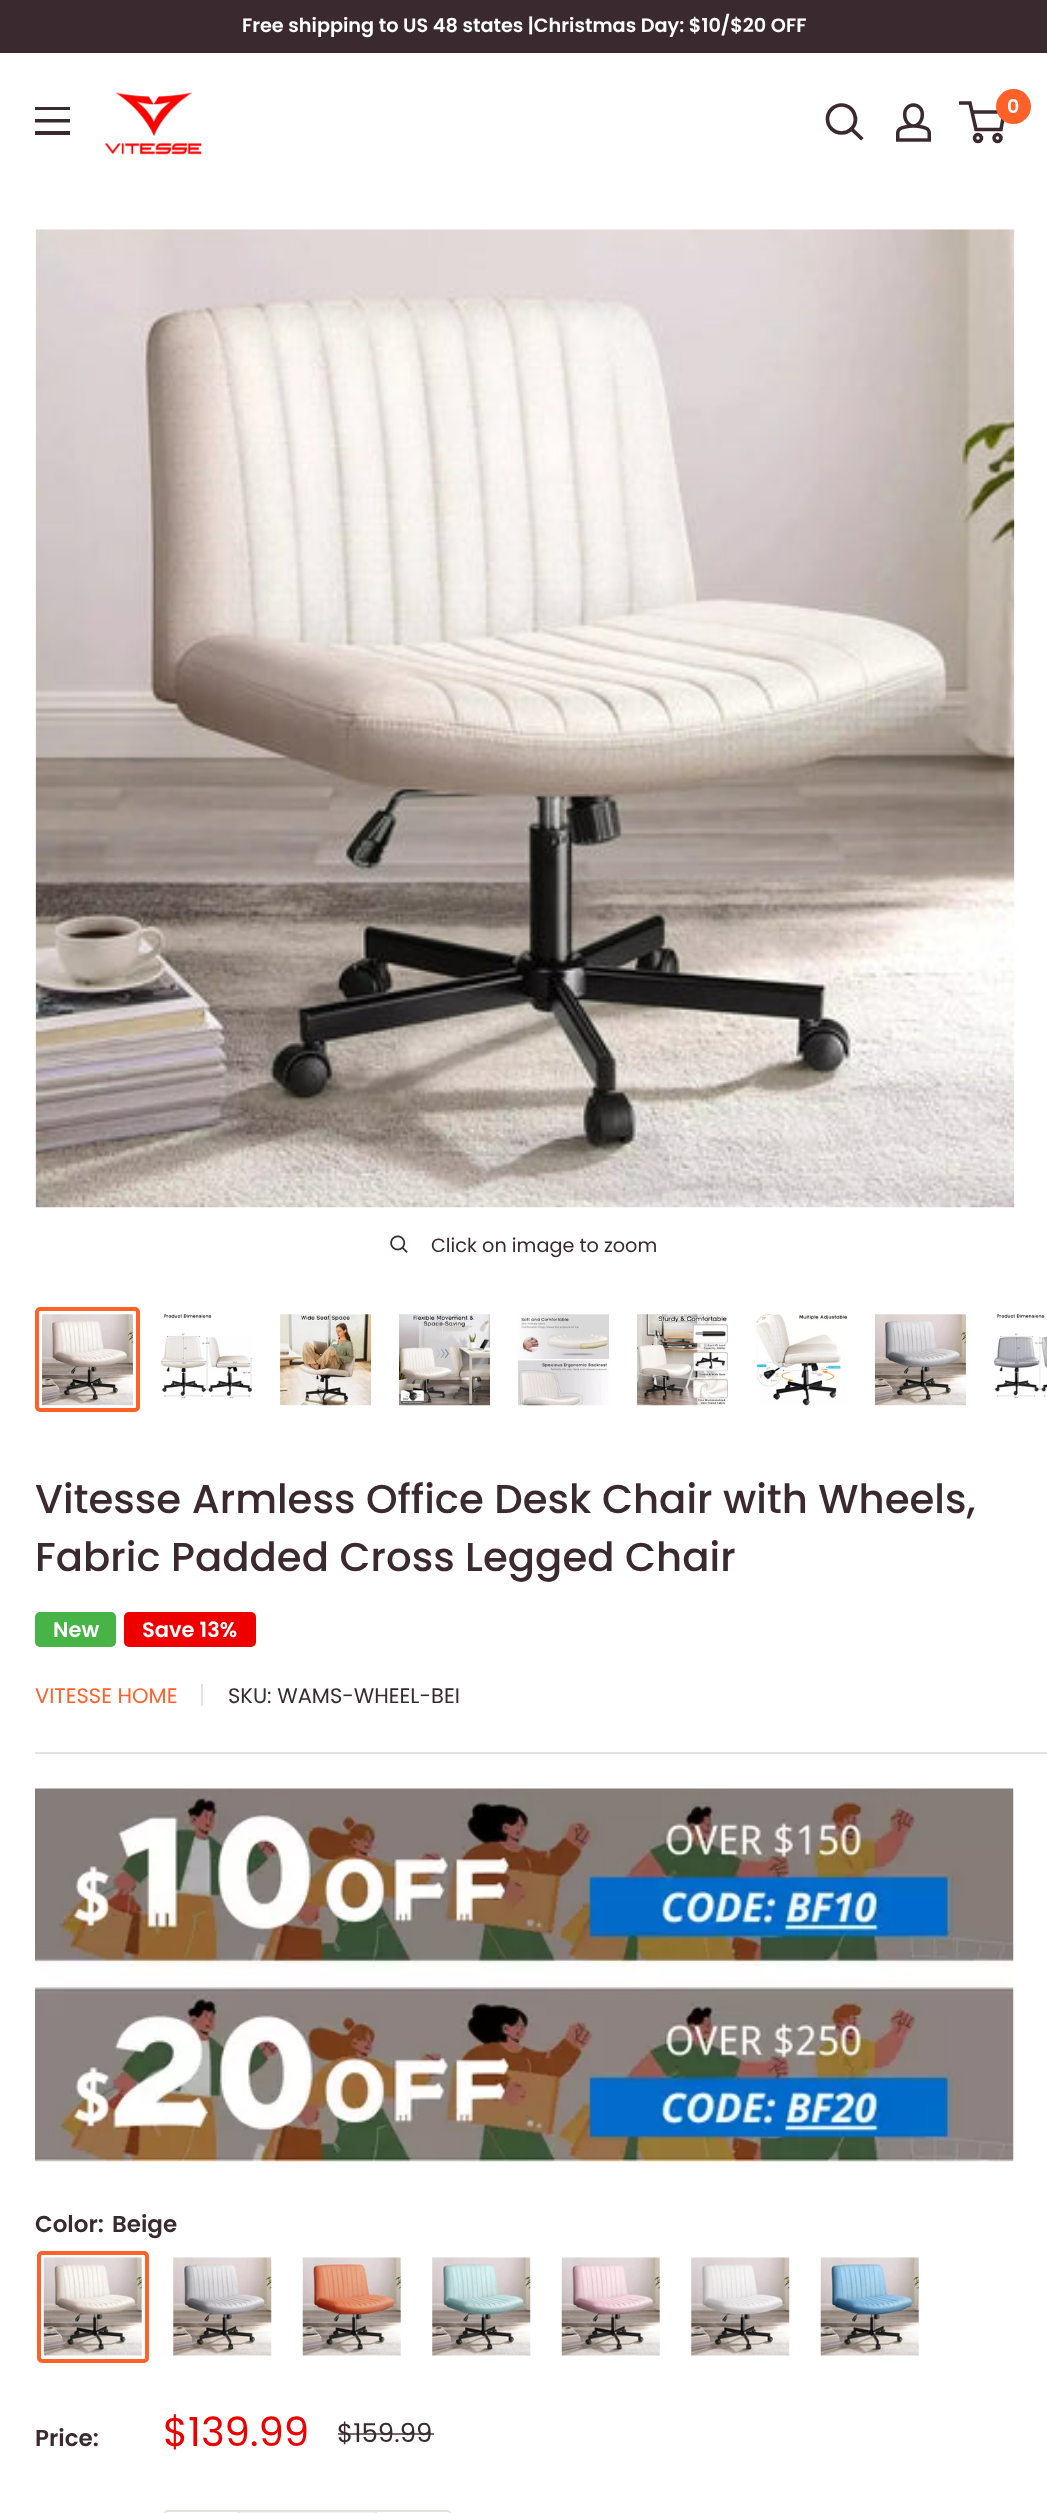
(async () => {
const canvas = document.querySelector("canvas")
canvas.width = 1047
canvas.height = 2513
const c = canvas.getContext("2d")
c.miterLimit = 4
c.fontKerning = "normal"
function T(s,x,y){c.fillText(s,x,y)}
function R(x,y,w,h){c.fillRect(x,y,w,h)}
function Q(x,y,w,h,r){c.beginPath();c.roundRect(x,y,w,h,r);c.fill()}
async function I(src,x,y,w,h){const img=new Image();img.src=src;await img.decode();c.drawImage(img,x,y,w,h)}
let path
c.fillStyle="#3a2a2f"
R(0,0,1047,2513)
c.font="600 19.25px Poppins"
c.fillStyle="#fff"
T("Free shipping to US 48 states |Christmas Day: $10/$20 OFF",242,32)
R(0,53,1047,2460)
await I("1.png",105,92,97,63)
path = new Path2D("M861 138l-9.5-9")
c.strokeStyle="#3a2a2f"
c.lineWidth=3.7
c.lineCap="square"
c.stroke(path)
c.beginPath()
c.arc(841.5,119,14,0,7)
c.stroke()
await I("2.png",896,103,35,39)
c.beginPath()
c.arc(978,138,3.5,0,7)
c.lineWidth=3.5
c.stroke()
c.beginPath()
c.arc(997.5,138,3.5,0,7)
c.stroke()
path = new Path2D("M972 112h32l-3 17.5h-25l-6-26.5h-11")
c.lineCap="butt"
c.stroke(path)
c.fillStyle="#ff6128"
c.beginPath()
c.arc(1013.5,106.5,17.5,0,7)
c.fill()
c.font="600 19px Poppins"
c.fillStyle="#fff"
T("0",1007,113)
c.fillStyle="#3a2a2f"
path = new Path2D("M35 131h35v4h-35zm0-24h35v3h-35zm0 12h35v3.5h-35z")
c.fill(path,"evenodd")
await I("3.png",35,229,980,979)
await I("4.png",390,1235,18,18)
c.font="19.25px Poppins"
T("Click on image to zoom",431,1252)
c.beginPath()
c.roundRect(37,1309,101,101,3)
c.strokeStyle="#ff6128"
c.lineWidth=4
c.stroke()
await I("5.png",42,1314,91,92)
await I("6.png",161,1314,91,85)
await I("7.png",280,1314,91,92)
await I("8.png",399,1314,91,92)
await I("9.png",518,1314,91,92)
await I("10.png",637,1314,91,92)
await I("11.png",756,1314,91,92)
await I("12.png",875,1314,91,92)
await I("13.png",994,1314,53,85)
c.font="500 40.25px Poppins"
T("Vitesse Armless Office Desk Chair with Wheels,",35,1513)
T("Fabric Padded Cross Legged Chair",35,1571)
c.fillStyle="#48b448"
Q(35,1612,81,35,5)
c.font="600 21px Poppins"
c.fillStyle="#fff"
T("New",53,1637)
c.fillStyle="#e00"
Q(124,1612,132,35,5)
c.fillStyle="#fff"
T("Save 13%",142,1637)
c.font="21px Poppins"
c.fillStyle="#ff6128"
T("VITESSE HOME",35,1703)
c.fillStyle="#e7e2de"
R(201,1684,2,22)
c.fillStyle="#3a2a2f"
T("SKU: WAMS-WHEEL-BEI",228,1703)
c.fillStyle="#e7e2de"
R(35,1752,1012,2)
await I("14.png",35,1788,979,374)
c.font="600 23px Poppins"
c.fillStyle="#3a2a2f"
T("Color:",35,2232)
T("Beige",112,2232)
c.beginPath()
c.roundRect(39,2253,108,108,3)
c.stroke()
await I("15.png",43,2257,99,99)
await I("16.png",173,2257,99,99)
await I("17.png",302,2257,99,99)
await I("18.png",432,2257,99,99)
await I("19.png",561,2257,99,99)
await I("20.png",691,2257,99,99)
await I("21.png",820,2257,99,99)
T("Price:",35,2446)
c.font="40.25px Poppins"
c.fillStyle="#e00"
T("$139.99",163,2446)
c.font="26px Poppins"
c.fillStyle="#3a2a2f"
T("$159.99",337,2442)
c.fillStyle="#3a2a2fb3"
R(338,2433,96,2)
c.beginPath()
c.roundRect(164,2511,287,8,4)
c.strokeStyle="#e7e2de"
c.lineWidth=2
c.stroke()
c.fillStyle="#e7e2de66"
R(240,2512,135,1)
c.fillStyle="#e7e2de"
R(375,2512,2,1)
R(238,2512,2,1)
})()
